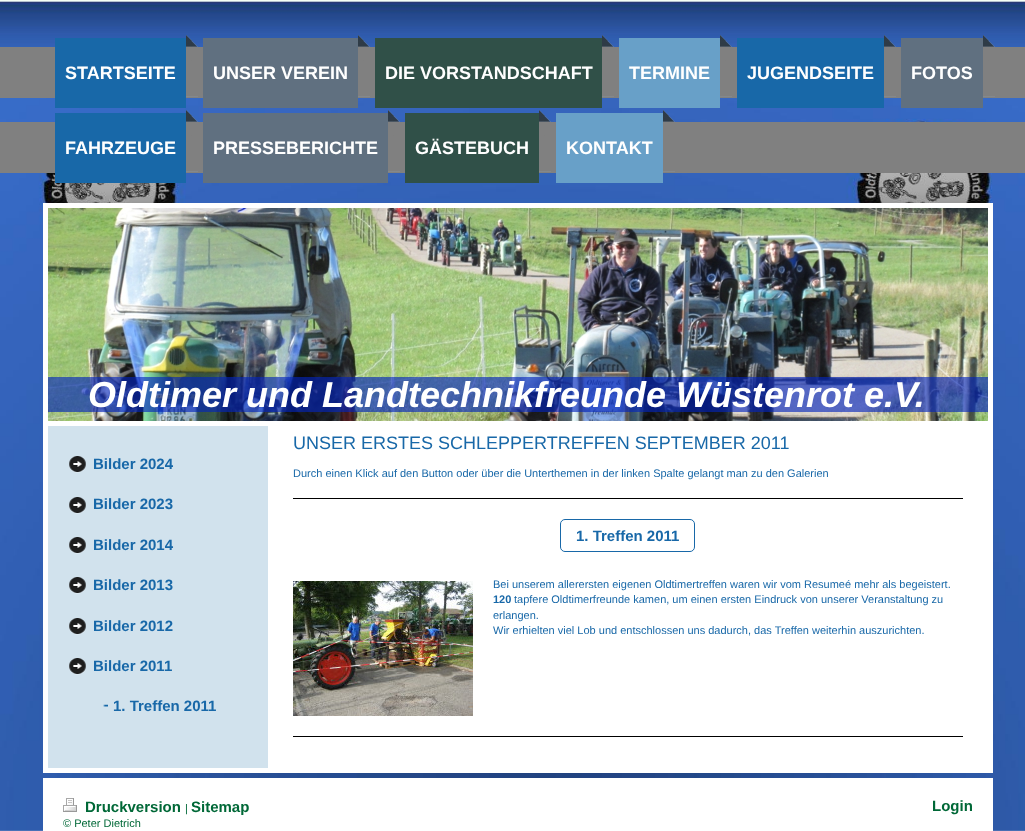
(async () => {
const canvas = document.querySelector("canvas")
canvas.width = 1025
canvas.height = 831
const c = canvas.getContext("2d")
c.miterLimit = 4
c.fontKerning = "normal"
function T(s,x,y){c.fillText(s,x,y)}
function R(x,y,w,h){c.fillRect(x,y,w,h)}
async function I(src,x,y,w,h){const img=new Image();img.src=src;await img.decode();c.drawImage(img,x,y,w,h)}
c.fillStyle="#fff"
R(0,0,1025,831)
await I("1.png",0,0,1025,831)
await I("2.png",0,47,1025,126)
await I("3.png",186,35,12,62)
c.fillStyle="#1868a8"
R(55,38,131,70)
c.font="bold 18px Liberation Sans"
c.fillStyle="#fff"
T("STARTSEITE",65,79)
await I("3.png",358,35,12,62)
c.fillStyle="#607080"
R(203,38,155,70)
c.fillStyle="#fff"
T("UNSER VEREIN",213,79)
await I("3.png",602,35,12,62)
c.fillStyle="#305048"
R(375,38,227,70)
c.fillStyle="#fff"
T("DIE VORSTANDSCHAFT",385,79)
await I("3.png",720,35,12,62)
c.fillStyle="#68a0c8"
R(619,38,101,70)
c.fillStyle="#fff"
T("TERMINE",629,79)
await I("3.png",884,35,12,62)
c.fillStyle="#1868a8"
R(737,38,147,70)
c.fillStyle="#fff"
T("JUGENDSEITE",747,79)
await I("3.png",983,35,12,62)
c.fillStyle="#607080"
R(901,38,82,70)
c.fillStyle="#fff"
T("FOTOS",911,79)
await I("4.png",186,110,12,62)
c.fillStyle="#1868a8"
R(55,113,131,70)
c.fillStyle="#fff"
T("FAHRZEUGE",65,154)
await I("5.png",388,110,12,62)
c.fillStyle="#607080"
R(203,113,185,70)
c.fillStyle="#fff"
T("PRESSEBERICHTE",213,154)
await I("6.png",539,110,12,62)
c.fillStyle="#305048"
R(405,113,134,70)
c.fillStyle="#fff"
T("GÄSTEBUCH",415,154)
await I("7.png",663,110,12,62)
c.fillStyle="#68a0c8"
R(556,113,107,70)
c.fillStyle="#fff"
T("KONTAKT",566,154)
c.strokeStyle="#fff"
c.lineWidth=5
c.strokeRect(45.5,205.5,945,218)
await I("8.png",48,208,940,213)
c.fillStyle="#0325bca1"
R(48,377,940,35)
c.font="italic bold 36px Liberation Sans"
c.fillStyle="#fff"
T("Oldtimer und Landtechnikfreunde Wüstenrot e.V.",88,407)
R(43,426,950,347)
c.fillStyle="#d1e2ed"
R(48,426,220,342)
await I("9.png",69,456,17,17)
c.font="bold 15px Liberation Sans"
c.fillStyle="#1868a8"
T("Bilder 2024",93,469)
await I("9.png",69,497,17,17)
T("Bilder 2023",93,509)
await I("9.png",69,537,17,17)
T("Bilder 2014",93,550)
await I("9.png",69,577,17,17)
T("Bilder 2013",93,590)
await I("9.png",69,618,17,17)
T("Bilder 2012",93,631)
await I("9.png",69,658,17,17)
T("Bilder 2011",93,671)
await I("10.png",103,704,5,3)
T("1. Treffen 2011",113,711)
c.font="18px Liberation Sans"
T("UNSER ERSTES SCHLEPPERTREFFEN SEPTEMBER 2011",293,449)
c.font="11px Liberation Sans"
T("Durch einen Klick auf den Button oder über die Unterthemen in der linken Spalte gelangt man zu den Galerien",293,477)
c.fillStyle="#000"
R(293,498,670,1)
c.beginPath()
c.roundRect(560.5,519.5,134,32,4.5)
c.strokeStyle="#1868a8"
c.lineWidth=1
c.stroke()
c.font="bold 15px Liberation Sans"
c.fillStyle="#1868a8"
T("1. Treffen 2011",576,541)
await I("11.png",293,581,180,135)
c.font="11px Liberation Sans"
T("Bei unserem allerersten eigenen Oldtimertreffen waren wir vom Resumeé mehr als begeistert.",493,588)
c.font="bold 11px Liberation Sans"
T("120",493,603)
c.font="11px Liberation Sans"
T("tapfere Oldtimerfreunde kamen, um einen ersten Eindruck von unserer Veranstaltung zu",514,603)
T("erlangen.",493,619)
T("Wir erhielten viel Lob und entschlossen uns dadurch, das Treffen weiterhin auszurichten.",493,634)
c.fillStyle="#000"
R(293,736,670,1)
c.fillStyle="#fff"
R(43,778,950,53)
await I("12.png",63,798,14,14)
c.font="bold 15px Liberation Sans"
c.fillStyle="#006837"
T("Druckversion",85,812)
c.font="11px Liberation Sans"
T("|",185,812)
c.font="bold 15px Liberation Sans"
T("Sitemap",191,812)
c.save()
c.beginPath()
c.rect(63,798,910,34)
c.clip()
c.font="11px Liberation Sans"
T("© Peter Dietrich",63,827)
c.restore()
T("Login",932,811)
})()
